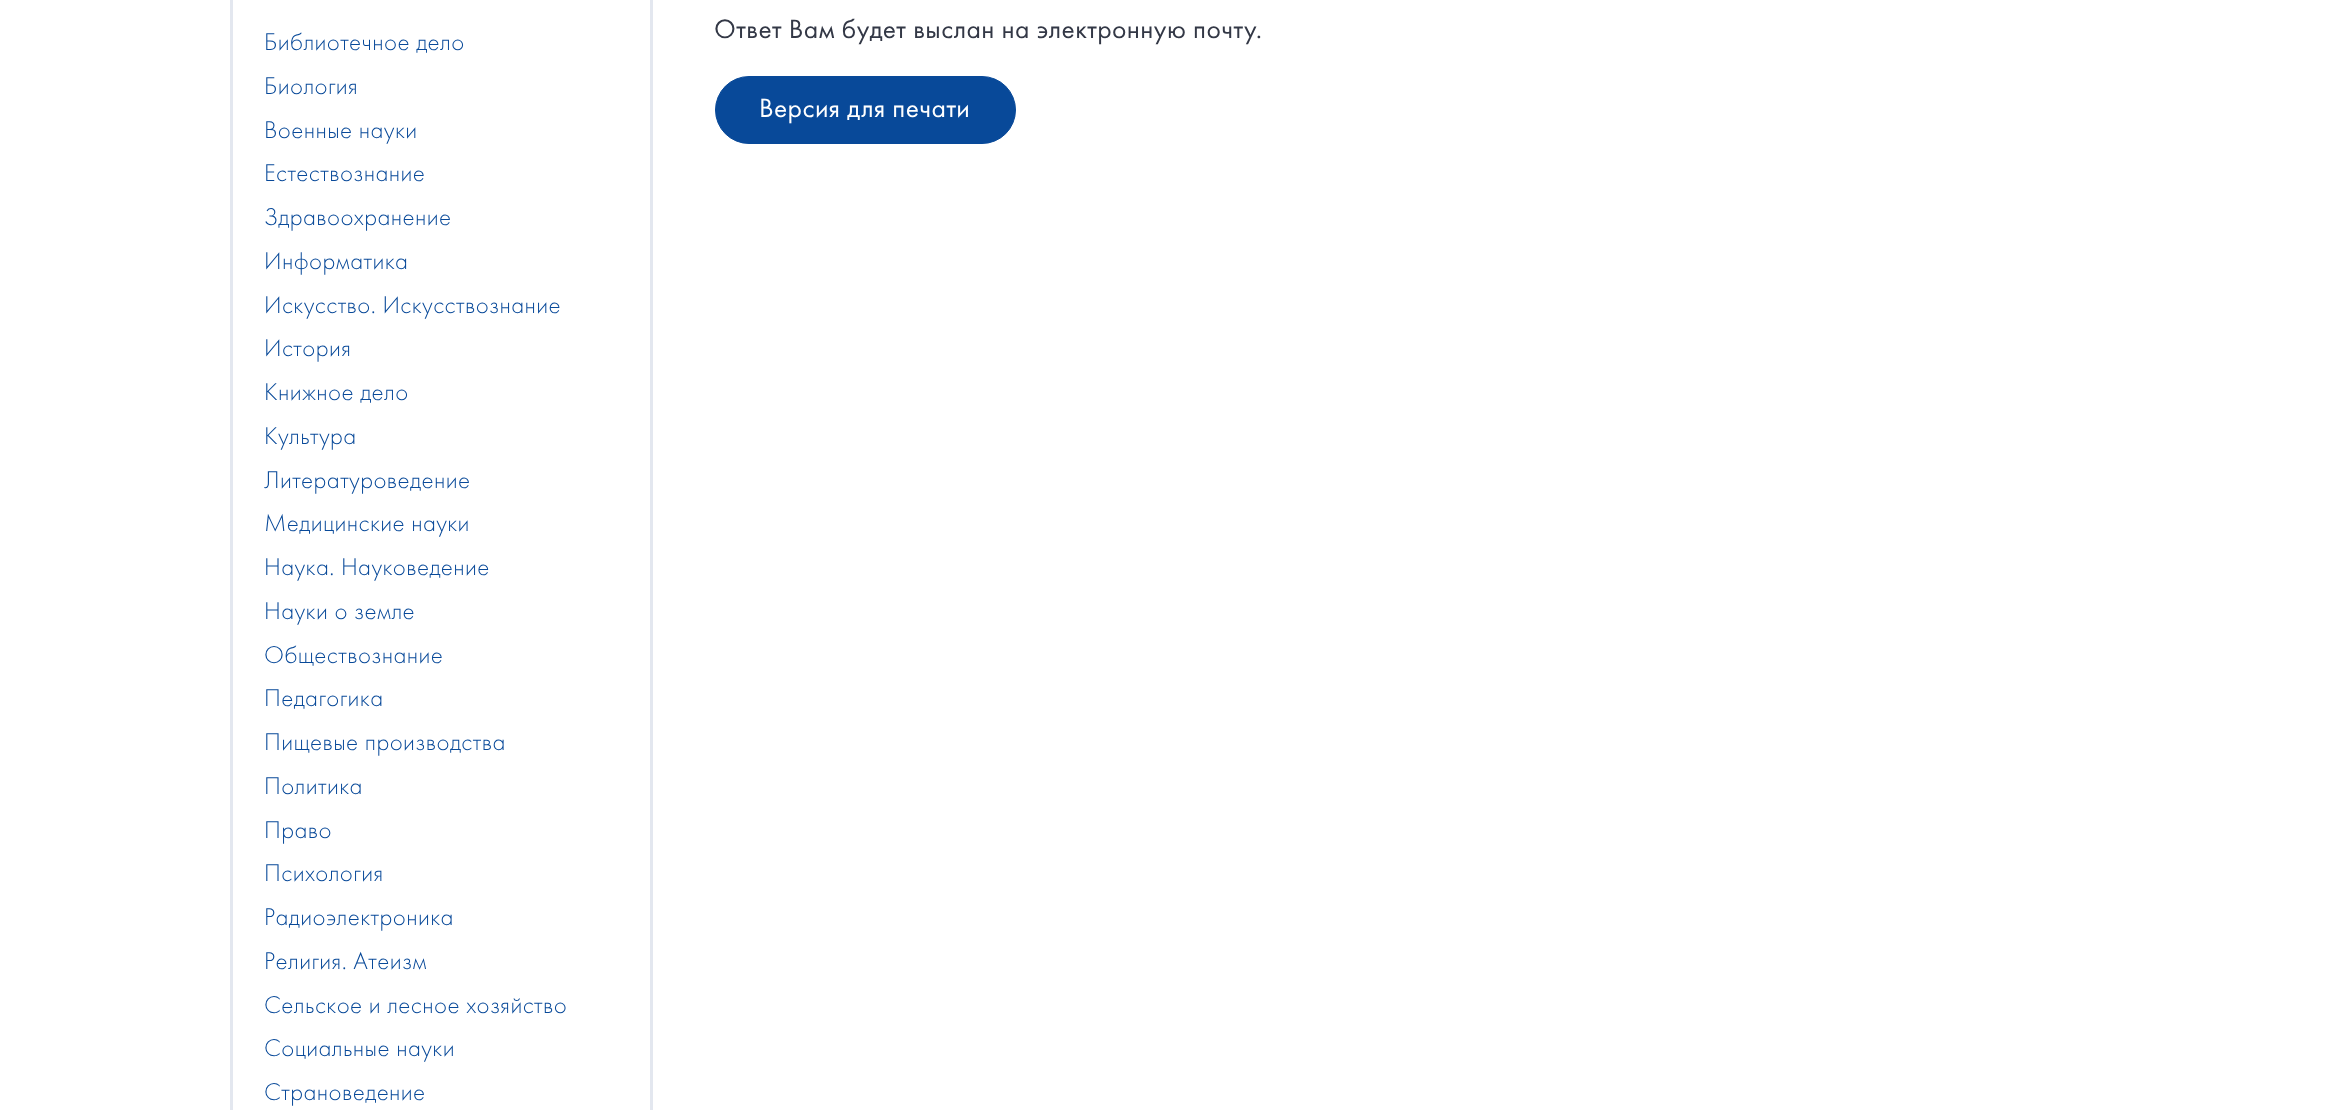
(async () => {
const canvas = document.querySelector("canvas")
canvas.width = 2334
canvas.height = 1110
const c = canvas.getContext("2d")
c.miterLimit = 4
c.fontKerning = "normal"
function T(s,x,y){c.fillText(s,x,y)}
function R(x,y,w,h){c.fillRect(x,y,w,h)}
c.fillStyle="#fff"
R(0,0,2334,1110)
c.strokeStyle="#e3e7ef"
c.lineWidth=3
c.strokeRect(231.5,-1.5,420,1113)
c.letterSpacing="0.4px"
c.font="300 25px Futura PT"
c.fillStyle="#084999"
T("Библиотечное дело",264,50)
T("Биология",264,94)
T("Военные науки",264,138)
T("Естествознание",264,181)
T("Здравоохранение",264,225)
T("Информатика",264,269)
T("Искусство. Искусствознание",264,313)
T("История",264,356)
T("Книжное дело",264,400)
T("Культура",264,444)
T("Литературоведение",264,488)
T("Медицинские науки",264,531)
T("Наука. Науковедение",264,575)
T("Науки о земле",264,619)
T("Обществознание",264,663)
T("Педагогика",264,706)
T("Пищевые производства",264,750)
T("Политика",264,794)
T("Право",264,838)
T("Психология",264,881)
T("Радиоэлектроника",264,925)
T("Религия. Атеизм",264,969)
T("Сельское и лесное хозяйство",264,1013)
T("Социальные науки",264,1056)
T("Страноведение",264,1100)
c.font="27.5px Futura PT"
c.fillStyle="#333846"
T("Ответ Вам будет выслан на электронную почту.",714,38)
c.fillStyle="#084999"
c.beginPath()
c.roundRect(715.5,76.5,300,67,33.5)
c.fill()
c.strokeStyle="#084999"
c.lineWidth=1
c.stroke()
c.fillStyle="#fff"
T("Версия для печати",759,117)
})()
